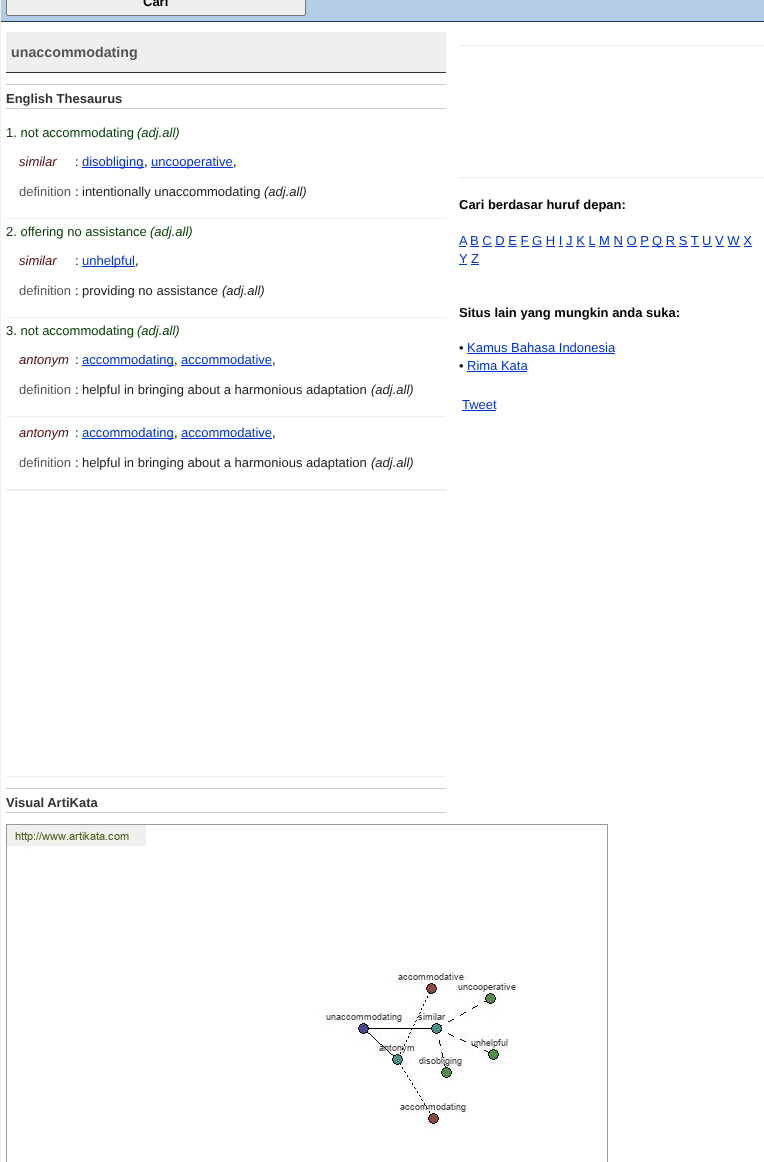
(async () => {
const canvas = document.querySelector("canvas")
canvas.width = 764
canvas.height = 1162
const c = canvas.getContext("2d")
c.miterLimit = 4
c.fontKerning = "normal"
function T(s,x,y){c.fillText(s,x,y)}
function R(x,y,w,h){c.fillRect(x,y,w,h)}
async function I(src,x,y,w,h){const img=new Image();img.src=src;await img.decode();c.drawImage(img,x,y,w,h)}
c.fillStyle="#efefef"
R(0,0,764,1162)
c.fillStyle="#fff"
R(1,22,763,1140)
c.fillStyle="#b3cde7"
R(1,0,763,21)
c.fillStyle="#163c61"
R(1,21,763,1)
c.fillStyle="#efefef"
c.beginPath()
c.roundRect(6.5,-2.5,299,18,1.5)
c.fill()
c.strokeStyle="#767676"
c.stroke()
c.font="bold 13px Liberation Sans"
c.fillStyle="#000"
T("Cari",143,6)
c.fillStyle="#efefef"
R(6,32,440,40)
c.fillStyle="#333"
R(6,72,440,1)
c.font="bold 14.25px Liberation Sans"
c.fillStyle="#555"
T("unaccommodating",11,57)
c.fillStyle="#ccc"
R(6,84,440,1)
R(6,108,440,1)
c.font="bold 13px Liberation Sans"
c.fillStyle="#333"
T("English Thesaurus",6,103)
c.fillStyle="#eee"
R(6,218,440,1)
c.font="13px Liberation Sans"
c.fillStyle="#094008"
T("1. not accommodating",6,137)
c.font="italic 13px Liberation Sans"
T("(adj.all)",137,137)
c.fillStyle="#4d0b0e"
T("similar",19,166)
c.font="13px Liberation Sans"
c.fillStyle="#000"
T(":",75,166)
c.fillStyle="#03c"
R(82,167,62,1)
T("disobliging",82,166)
c.fillStyle="#000"
T(",",144,166)
c.fillStyle="#03c"
R(151,167,82,1)
T("uncooperative",151,166)
c.fillStyle="#000"
T(",",233,166)
c.fillStyle="#555"
T("definition",19,196)
c.fillStyle="#000"
T(":",75,196)
c.fillStyle="#222"
T("intentionally unaccommodating",82,196)
c.font="italic 13px Liberation Sans"
T("(adj.all)",264,196)
c.fillStyle="#eee"
R(6,317,440,1)
c.font="13px Liberation Sans"
c.fillStyle="#094008"
T("2. offering no assistance",6,236)
c.font="italic 13px Liberation Sans"
T("(adj.all)",150,236)
c.fillStyle="#4d0b0e"
T("similar",19,265)
c.font="13px Liberation Sans"
c.fillStyle="#000"
T(":",75,265)
c.fillStyle="#03c"
R(82,266,53,1)
T("unhelpful",82,265)
c.fillStyle="#000"
T(",",135,265)
c.fillStyle="#555"
T("definition",19,295)
c.fillStyle="#000"
T(":",75,295)
c.fillStyle="#222"
T("providing no assistance",82,295)
c.font="italic 13px Liberation Sans"
T("(adj.all)",222,295)
c.fillStyle="#eee"
R(6,416,440,1)
c.font="13px Liberation Sans"
c.fillStyle="#094008"
T("3. not accommodating",6,335)
c.font="italic 13px Liberation Sans"
T("(adj.all)",137,335)
c.fillStyle="#4d0b0e"
T("antonym",19,364)
c.font="13px Liberation Sans"
c.fillStyle="#000"
T(":",75,364)
c.fillStyle="#03c"
R(82,365,92,1)
T("accommodating",82,364)
c.fillStyle="#000"
T(",",174,364)
c.fillStyle="#03c"
T("accommodative",181,364)
R(181,365,91,1)
c.fillStyle="#000"
T(",",272,364)
c.fillStyle="#555"
T("definition",19,394)
c.fillStyle="#000"
T(":",75,394)
c.fillStyle="#222"
T("helpful in bringing about a harmonious adaptation",82,394)
c.font="italic 13px Liberation Sans"
T("(adj.all)",371,394)
c.fillStyle="#eee"
R(6,489,440,2)
c.fillStyle="#4d0b0e"
T("antonym",19,437)
c.font="13px Liberation Sans"
c.fillStyle="#000"
T(":",75,437)
c.fillStyle="#03c"
R(82,438,92,1)
T("accommodating",82,437)
c.fillStyle="#000"
T(",",174,437)
c.fillStyle="#03c"
T("accommodative",181,437)
R(181,438,91,1)
c.fillStyle="#000"
T(",",272,437)
c.fillStyle="#555"
T("definition",19,467)
c.fillStyle="#000"
T(":",75,467)
c.fillStyle="#222"
T("helpful in bringing about a harmonious adaptation",82,467)
c.font="italic 13px Liberation Sans"
T("(adj.all)",371,467)
c.fillStyle="#eee"
R(6,776,440,1)
c.fillStyle="#ccc"
R(6,788,440,1)
R(6,812,440,1)
c.font="bold 13px Liberation Sans"
c.fillStyle="#333"
T("Visual ArtiKata",6,807)
c.strokeStyle="#999"
c.strokeRect(6.5,824.5,601,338)
await I("1.png",7,825,512,304)
c.fillStyle="#eee"
R(459,45,305,1)
R(459,177,305,1)
c.fillStyle="#000"
T("Cari berdasar huruf depan:",459,209)
c.font="13px Liberation Sans"
c.fillStyle="#03c"
T("A",459,245)
R(459,246,7,1)
T("B C D E F G H I J K L",470,245)
R(470,246,9,1)
T("M N O P",599,245)
R(599,246,11,1)
R(652,246,11,1)
T("Q R S T U V W X",652,245)
R(482,246,10,1)
R(495,246,10,1)
R(508,246,9,1)
R(521,246,8,1)
R(532,246,10,1)
R(546,246,9,1)
R(559,246,4,1)
R(566,246,7,1)
R(576,246,9,1)
R(589,246,6,1)
R(614,246,9,1)
R(627,246,10,1)
R(640,246,9,1)
R(666,246,10,1)
R(679,246,9,1)
R(691,246,8,1)
R(703,246,9,1)
R(716,246,8,1)
R(728,246,12,1)
R(744,246,8,1)
T("Y Z",459,263)
R(459,264,8,1)
R(471,264,8,1)
c.font="bold 13px Liberation Sans"
c.fillStyle="#000"
T("Situs lain yang mungkin anda suka:",459,317)
c.font="13px Liberation Sans"
T("•",459,352)
c.fillStyle="#03c"
T("Kamus Bahasa Indonesia",467,352)
R(467,353,148,1)
c.fillStyle="#000"
T("•",459,370)
c.fillStyle="#03c"
T("Rima Kata",467,370)
R(467,371,60,1)
T("Tweet",462,409)
R(462,410,34,1)
})()
